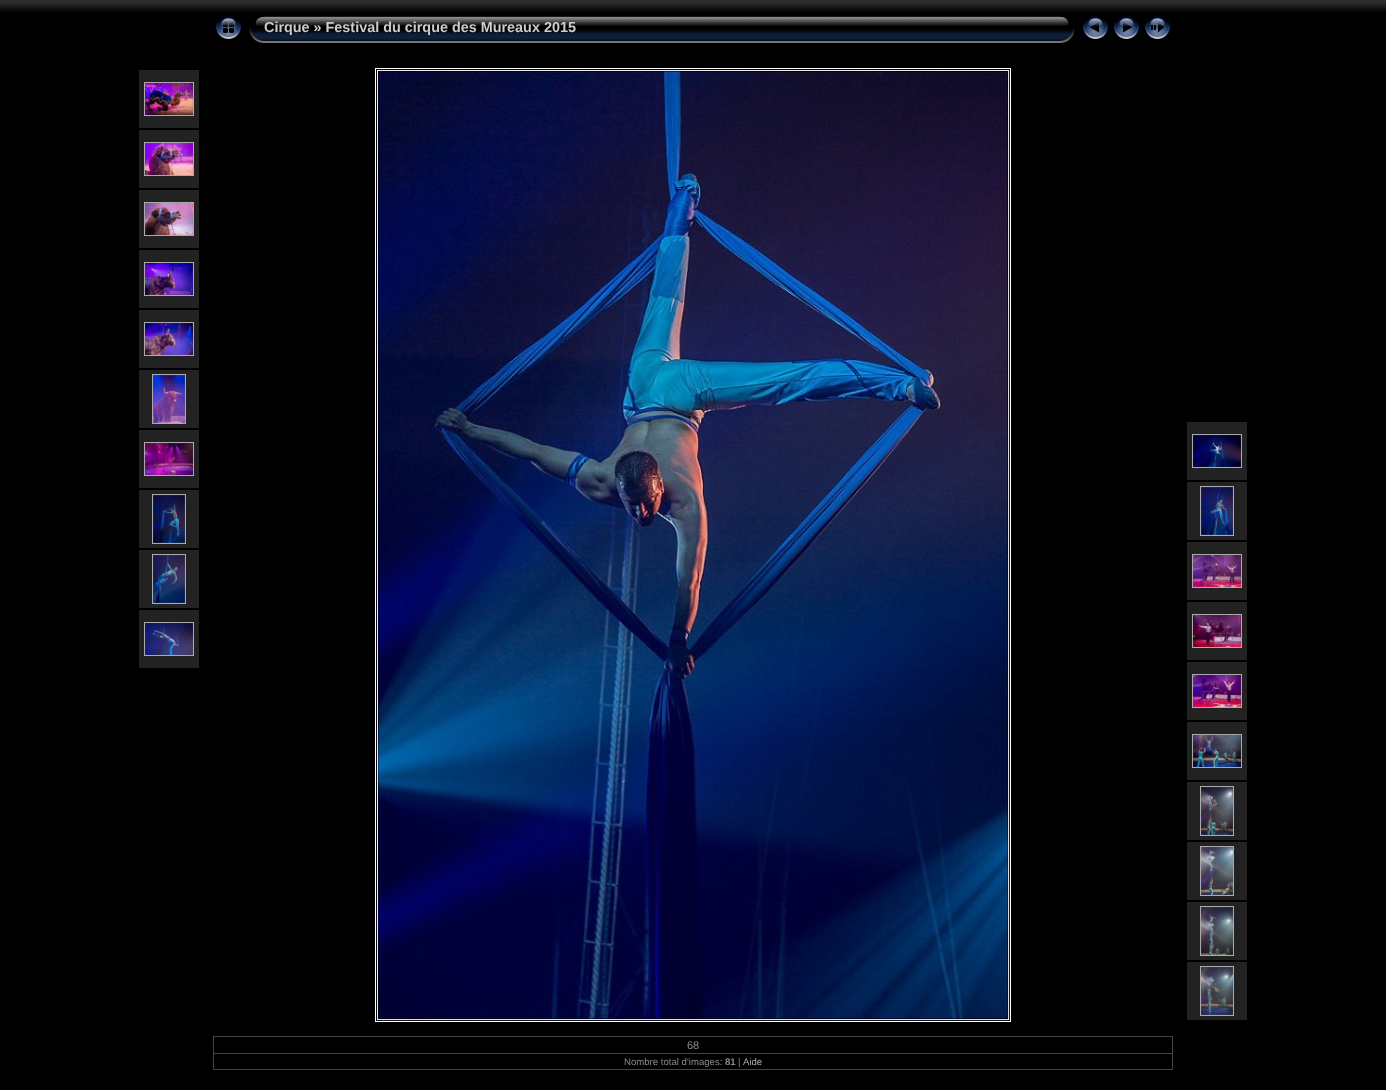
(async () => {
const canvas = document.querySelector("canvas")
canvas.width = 1386
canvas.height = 1090
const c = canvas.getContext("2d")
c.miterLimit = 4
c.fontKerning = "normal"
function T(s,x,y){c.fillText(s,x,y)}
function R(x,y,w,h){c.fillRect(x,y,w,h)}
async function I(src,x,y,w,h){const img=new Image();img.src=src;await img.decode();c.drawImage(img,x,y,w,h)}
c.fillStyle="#000"
R(0,0,1386,1090)
await I("1.png",0,0,1386,12)
await I("2.png",216,16,25,23)
await I("3.png",249,16,15,27)
await I("4.png",264,16,796,27)
c.font="bold 14.4px Liberation Sans"
c.fillStyle="#ccc"
T("Cirque » Festival du cirque des Mureaux 2015",264,32)
await I("5.png",1060,16,15,27)
await I("6.png",1083,16,25,23)
await I("7.png",1114,16,25,23)
await I("8.png",1145,16,25,23)
c.fillStyle="#222"
R(139,70,60,58)
c.strokeStyle="#aaa"
c.strokeRect(144.5,82.5,49,33)
await I("9.png",145,83,48,32)
R(139,130,60,58)
c.strokeRect(144.5,142.5,49,33)
await I("10.png",145,143,48,32)
R(139,190,60,58)
c.strokeRect(144.5,202.5,49,33)
await I("11.png",145,203,48,32)
R(139,250,60,58)
c.strokeRect(144.5,262.5,49,33)
await I("12.png",145,263,48,32)
R(139,310,60,58)
c.strokeRect(144.5,322.5,49,33)
await I("13.png",145,323,48,32)
R(139,370,60,58)
c.strokeRect(152.5,374.5,33,49)
await I("14.png",153,375,32,48)
R(139,430,60,58)
c.strokeRect(144.5,442.5,49,33)
await I("15.png",145,443,48,32)
R(139,490,60,58)
c.strokeRect(152.5,494.5,33,49)
await I("16.png",153,495,32,48)
R(139,550,60,58)
c.strokeRect(152.5,554.5,33,49)
await I("17.png",153,555,32,48)
R(139,610,60,58)
c.strokeRect(144.5,622.5,49,33)
await I("18.png",145,623,48,32)
c.strokeStyle="#fff"
c.strokeRect(375.5,68.5,635,953)
await I("19.png",376,69,634,952)
R(1187,422,60,58)
c.strokeStyle="#aaa"
c.strokeRect(1192.5,434.5,49,33)
await I("20.png",1193,435,48,32)
R(1187,482,60,58)
c.strokeRect(1200.5,486.5,33,49)
await I("21.png",1201,487,32,48)
R(1187,542,60,58)
c.strokeRect(1192.5,554.5,49,33)
await I("22.png",1193,555,48,32)
R(1187,602,60,58)
c.strokeRect(1192.5,614.5,49,33)
await I("23.png",1193,615,48,32)
R(1187,662,60,58)
c.strokeRect(1192.5,674.5,49,33)
await I("24.png",1193,675,48,32)
R(1187,722,60,58)
c.strokeRect(1192.5,734.5,49,33)
await I("25.png",1193,735,48,32)
R(1187,782,60,58)
c.strokeRect(1200.5,786.5,33,49)
await I("26.png",1201,787,32,48)
R(1187,842,60,58)
c.strokeRect(1200.5,846.5,33,49)
await I("27.png",1201,847,32,48)
R(1187,902,60,58)
c.strokeRect(1200.5,906.5,33,49)
await I("28.png",1201,907,32,48)
R(1187,962,60,58)
c.strokeRect(1200.5,966.5,33,49)
await I("29.png",1201,967,32,48)
c.fillStyle="#444"
R(213,1036,960,1)
R(1172,1036,1,34)
R(213,1069,960,1)
R(213,1036,1,34)
c.font="11px Liberation Sans"
c.fillStyle="#888"
T("68",687,1049)
c.fillStyle="#444"
R(213,1053,960,1)
c.font="9.6px Liberation Sans"
c.fillStyle="#888"
T("Nombre total d'images:",624,1065)
c.font="bold 9.6px Liberation Sans"
T("81",725,1065)
c.font="9.6px Liberation Sans"
T("|",738,1065)
c.fillStyle="#aaa"
T("Aide",743,1065)
})()
